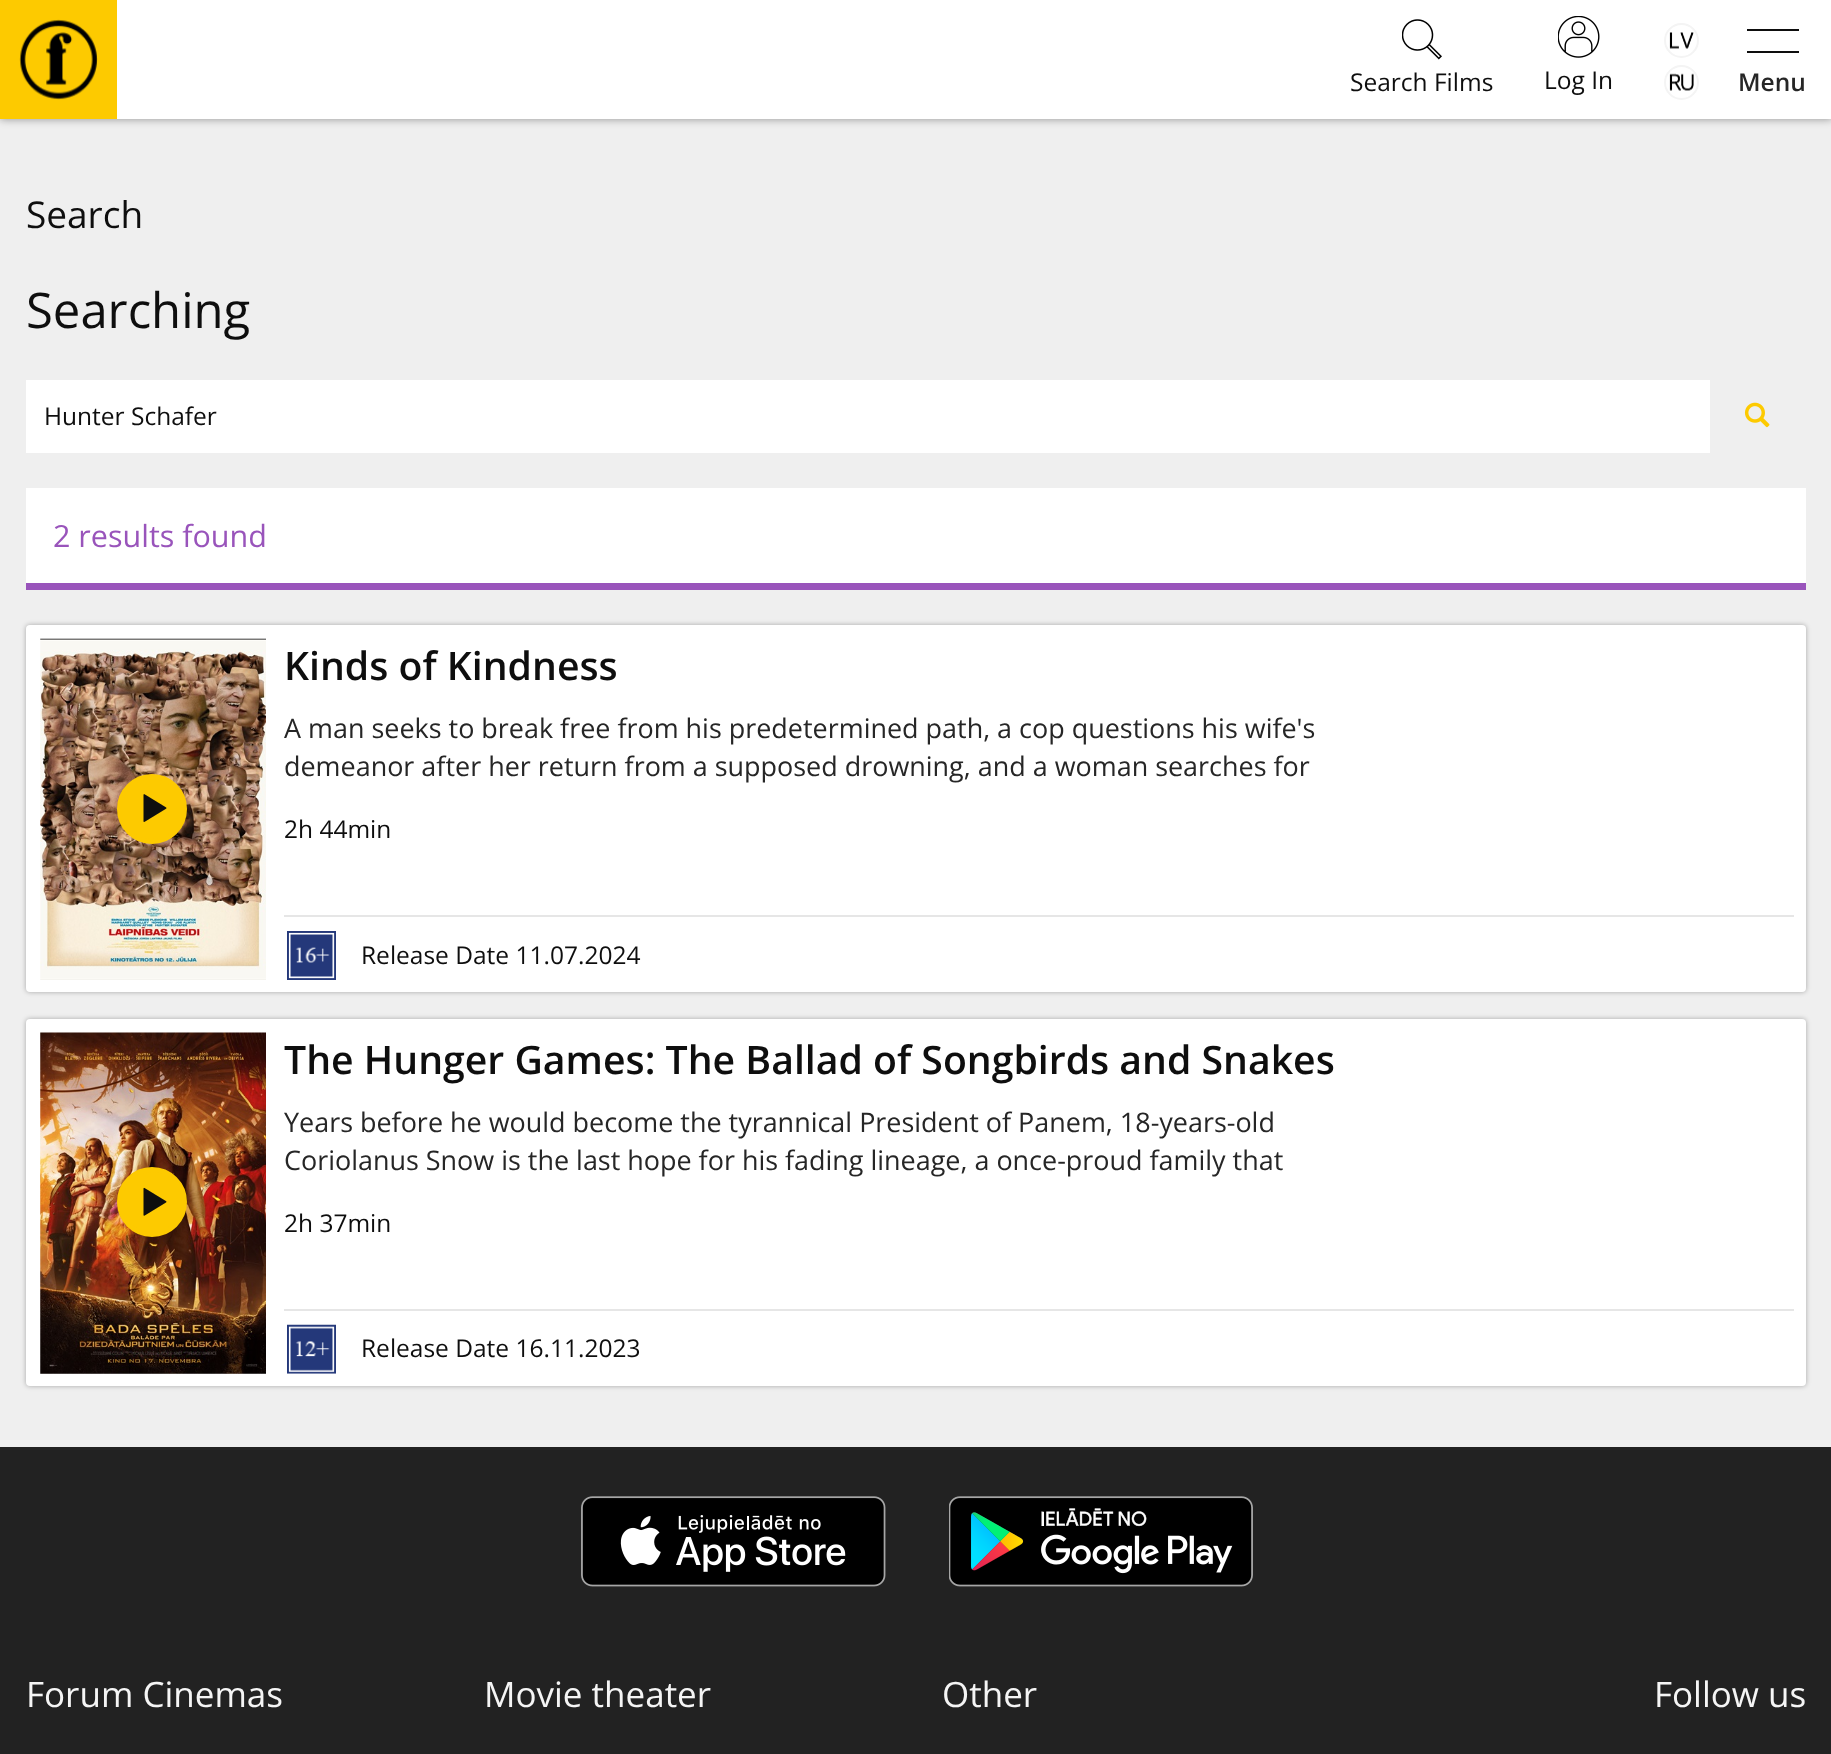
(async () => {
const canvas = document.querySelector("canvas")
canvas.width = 1831
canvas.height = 1754
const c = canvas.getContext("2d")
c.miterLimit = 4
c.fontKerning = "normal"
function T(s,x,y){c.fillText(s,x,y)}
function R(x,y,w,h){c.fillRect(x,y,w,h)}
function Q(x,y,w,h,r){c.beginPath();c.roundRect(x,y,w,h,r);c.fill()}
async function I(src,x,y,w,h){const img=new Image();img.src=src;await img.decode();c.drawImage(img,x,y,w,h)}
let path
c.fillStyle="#efefef"
R(0,0,1831,1754)
c.fillStyle="#00000066"
c.filter="blur(4.5px)"
c.beginPath()
c.rect(0,0,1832,119)
c.fill()
c.filter="none"
c.fillStyle="#fff"
R(117,0,1714,119)
c.fillStyle="#fdca00"
R(0,0,117,119)
await I("1.png",19,19,79,81)
await I("2.png",1402,19,40,41)
c.font="24.5px Open Sans"
c.fillStyle="#0e0e0e"
T("Search Films",1350,91)
await I("3.png",1558,16,42,42)
T("Log In",1544,89)
c.beginPath()
c.arc(1681.5,40.5,16.5,0,7)
c.strokeStyle="#f4f4f4"
c.lineWidth=2
c.stroke()
await I("4.png",1669,32,25,17)
c.beginPath()
c.arc(1681.5,82.5,16.5,0,7)
c.stroke()
await I("5.png",1669,73,25,18)
c.save()
c.beginPath()
c.rect(1747,19,52,44)
c.clip()
path = new Path2D("M1746 31v-2h53v2zm0 22v-2h53v2z")
c.fill(path)
c.restore()
c.font="600 24.5px Open Sans"
c.fillStyle="#262626"
T("Menu",1738,91)
c.font="37px Open Sans"
c.fillStyle="#0e0e0e"
T("Search",26,228)
c.font="49px Open Sans"
T("Searching",26,328)
c.fillStyle="#fff"
R(26,380,1684,73)
c.font="24.5px Open Sans"
c.fillStyle="#0e0e0e"
T("Hunter Schafer",44,425)
await I("6.png",1744,402,26,26)
c.fillStyle="#fff"
R(26,488,1780,95)
c.fillStyle="#9954bb"
R(26,583,1780,7)
c.font="30.5px Open Sans"
T("2 results found",53,547)
c.fillStyle="#0000004d"
c.filter="blur(2.5px)"
c.beginPath()
c.roundRect(26,625,1780,367,4)
c.fill()
c.filter="none"
c.fillStyle="#fff"
Q(26,625,1780,367,4)
await I("7.png",40,638,226,342)
c.fillStyle="#fdca00"
c.beginPath()
c.arc(152,809,32.5,0,7)
c.fill()
c.strokeStyle="#fdca00"
c.lineWidth=5
c.stroke()
await I("8.png",143,794,24,28)
c.font="600 39.2px Open Sans"
c.fillStyle="#0e0e0e"
T("Kinds of Kindness",284,680)
c.font="26.95px Open Sans"
c.fillStyle="#262626"
T("A man seeks to break free from his predetermined path, a cop questions his wife's",284,738)
T("demeanor after her return from a supposed drowning, and a woman searches for",284,776)
c.font="24.5px Open Sans"
c.fillStyle="#0e0e0e"
T("2h 44min",284,838)
c.fillStyle="#e6e6e6"
R(284,915,1510,2)
await I("9.png",287,931,49,49)
c.fillStyle="#0e0e0e"
T("Release Date 11.07.2024",361,964)
c.fillStyle="#0000004d"
c.filter="blur(2.5px)"
c.beginPath()
c.roundRect(26,1019,1780,367,4)
c.fill()
c.filter="none"
c.fillStyle="#fff"
Q(26,1019,1780,367,4)
c.fillStyle="#f6f6f6"
R(40,1033,226,341)
await I("10.png",40,1032,226,342)
c.fillStyle="#fdca00"
c.beginPath()
c.arc(152,1202,32.5,0,7)
c.fill()
c.stroke()
await I("11.png",143,1187,24,29)
c.font="600 39.2px Open Sans"
c.fillStyle="#0e0e0e"
T("The Hunger Games: The Ballad of Songbirds and Snakes",284,1074)
c.font="26.95px Open Sans"
c.fillStyle="#262626"
T("Years before he would become the tyrannical President of Panem, 18-years-old",284,1132)
T("Coriolanus Snow is the last hope for his fading lineage, a once-proud family that",284,1170)
c.font="24.5px Open Sans"
c.fillStyle="#0e0e0e"
T("2h 37min",284,1232)
c.fillStyle="#e6e6e6"
R(284,1309,1510,2)
await I("12.png",287,1324,49,50)
c.fillStyle="#0e0e0e"
T("Release Date 16.11.2023",361,1357)
c.fillStyle="#222"
R(0,1447,1831,307)
await I("13.png",581,1496,305,91)
await I("14.png",949,1496,304,91)
c.font="35px Open Sans"
c.fillStyle="#f5f5f5"
T("Forum Cinemas",26,1707)
T("Movie theater",484,1707)
T("Other",942,1707)
T("Follow us",1654,1707)
})()
